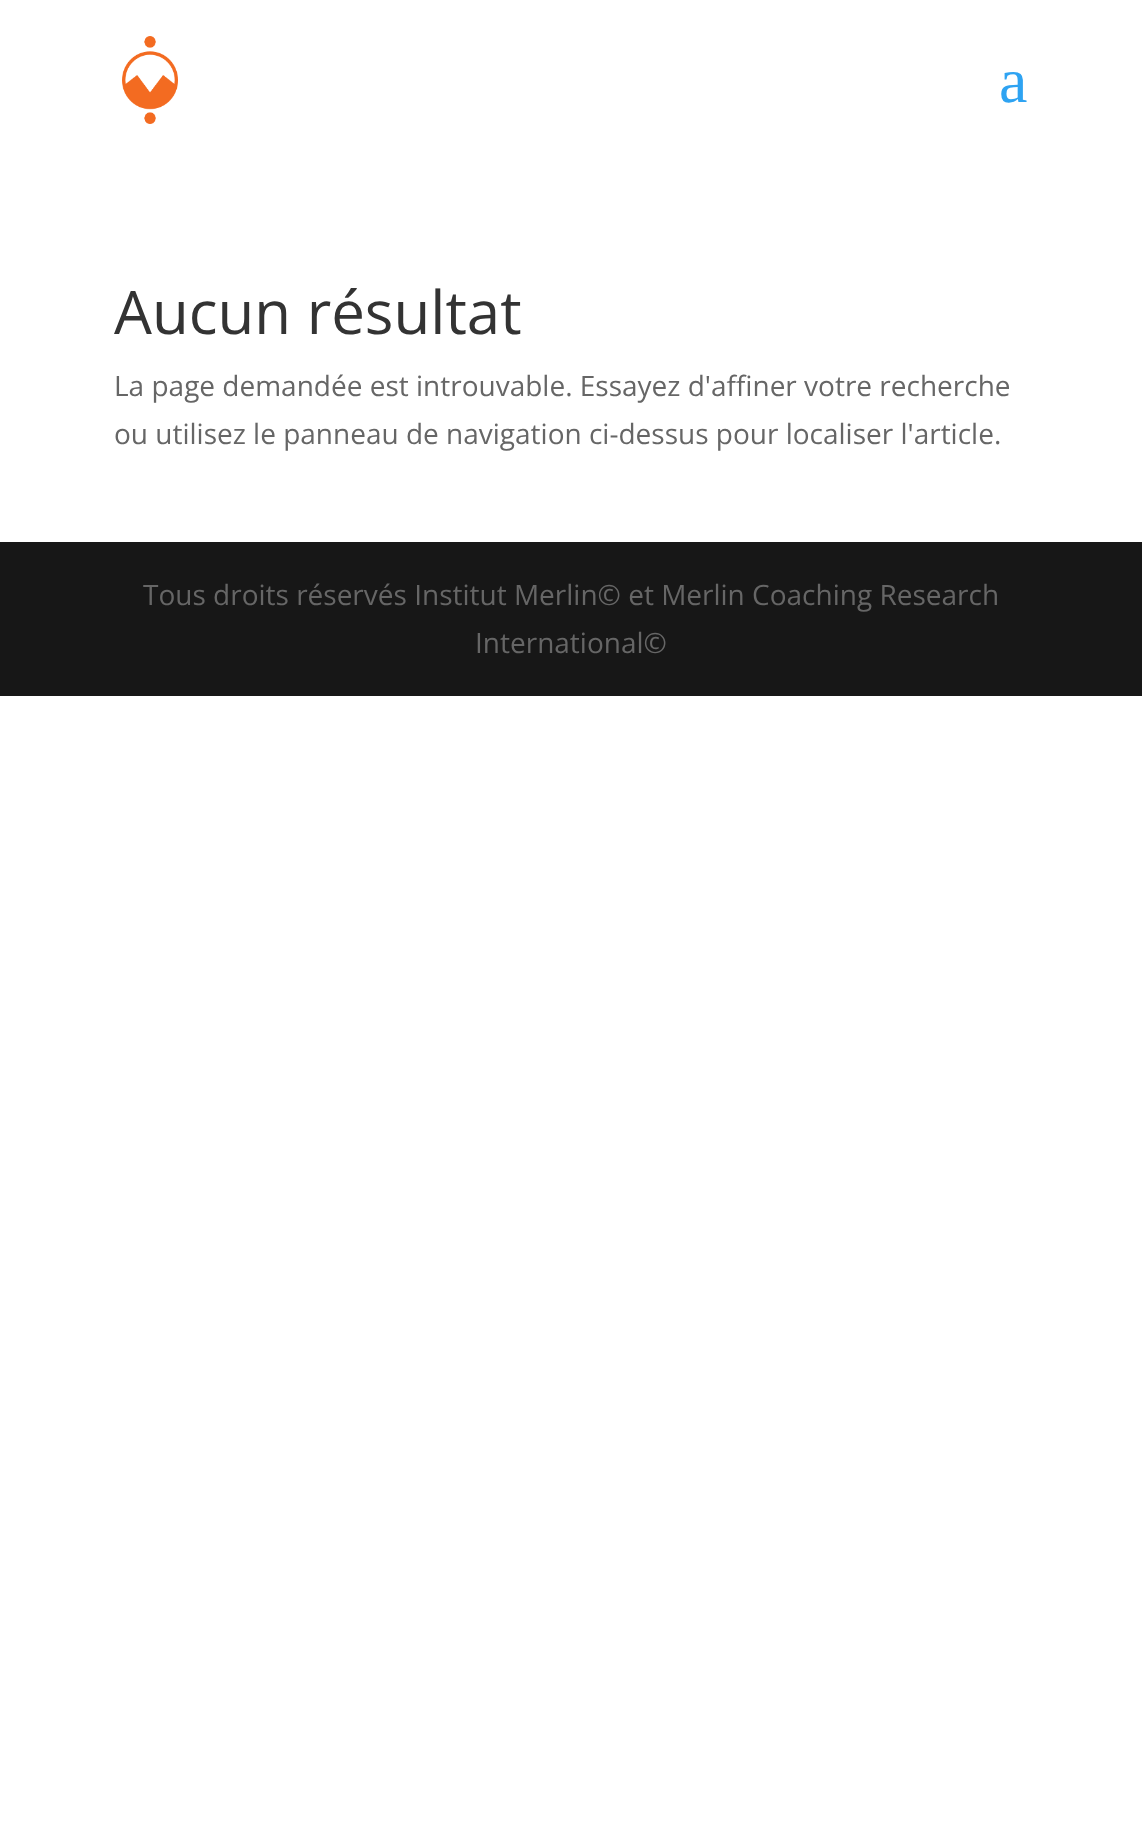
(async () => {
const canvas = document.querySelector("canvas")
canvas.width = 1142
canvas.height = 1839
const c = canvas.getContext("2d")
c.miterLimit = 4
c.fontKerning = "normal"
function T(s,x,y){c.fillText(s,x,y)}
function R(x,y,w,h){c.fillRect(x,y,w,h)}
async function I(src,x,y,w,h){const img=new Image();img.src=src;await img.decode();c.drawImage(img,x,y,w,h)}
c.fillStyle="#fff"
R(0,0,1142,1839)
await I("1.png",122,36,56,88)
c.font="64px Liberation Serif"
c.fillStyle="#2ea3f2"
T("a",999,102)
c.font="60px Open Sans"
c.fillStyle="#333"
T("Aucun résultat",114,334)
c.font="28px Open Sans"
c.fillStyle="#666"
T("La page demandée est introuvable. Essayez d'affiner votre recherche",114,396)
T("ou utilisez le panneau de navigation ci-dessus pour localiser l'article.",114,444)
c.fillStyle="#171717"
R(0,542,1142,154)
c.fillStyle="#666"
T("Tous droits réservés Institut Merlin© et Merlin Coaching Research",143,605)
T("International©",475,653)
})()
